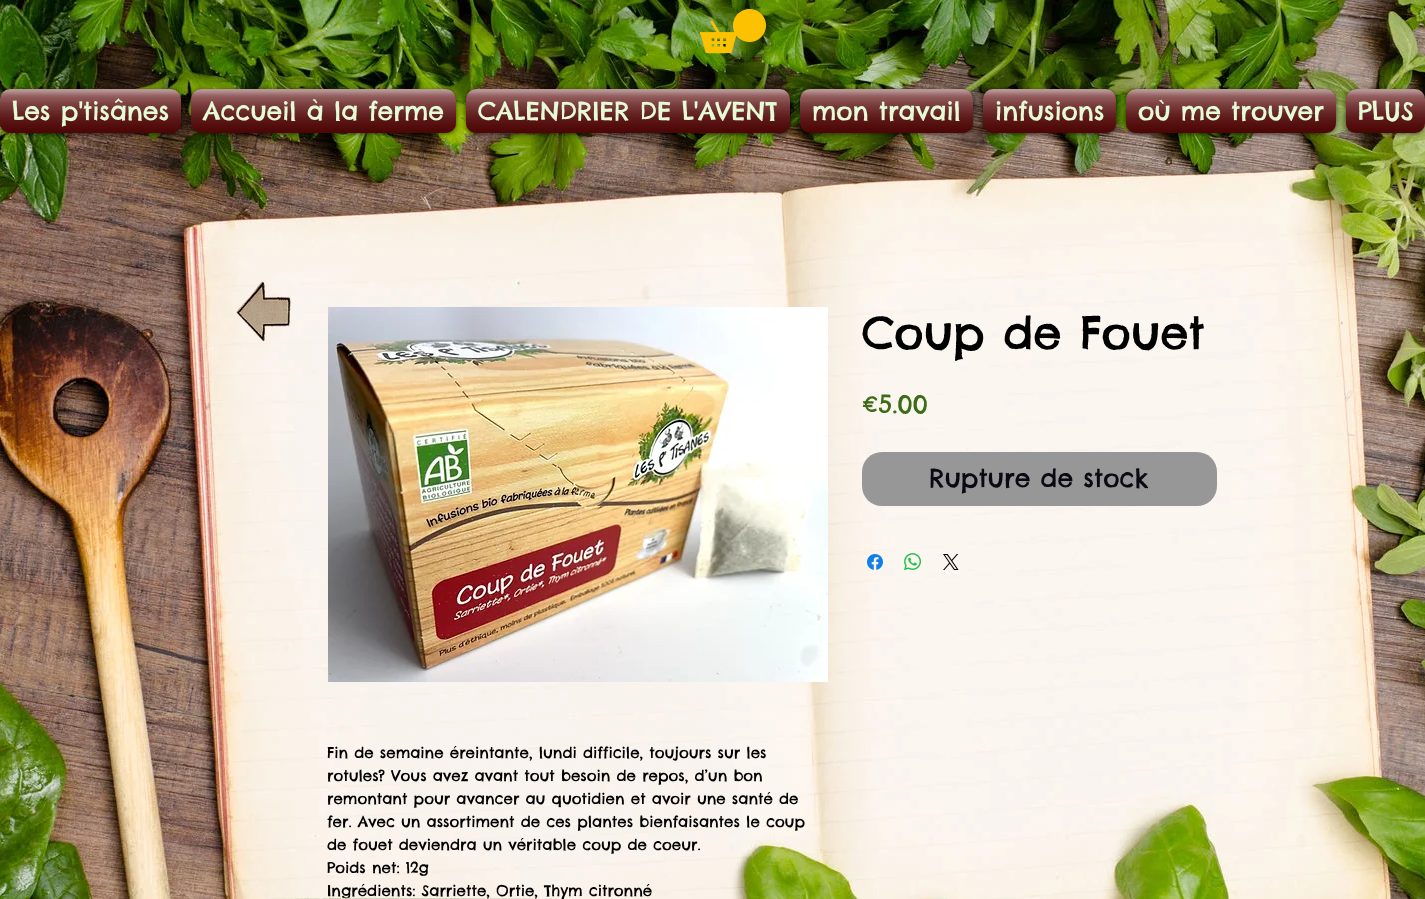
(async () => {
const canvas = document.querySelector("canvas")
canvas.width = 1425
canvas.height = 899
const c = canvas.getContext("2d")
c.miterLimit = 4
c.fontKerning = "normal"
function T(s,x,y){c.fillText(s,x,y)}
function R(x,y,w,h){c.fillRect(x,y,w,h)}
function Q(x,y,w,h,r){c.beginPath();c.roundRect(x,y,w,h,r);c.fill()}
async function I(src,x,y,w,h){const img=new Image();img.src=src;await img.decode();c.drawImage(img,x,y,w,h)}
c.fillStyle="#fff"
R(0,0,1425,899)
await I("1.png",0,0,1425,899)
await I("2.png",700,9,66,45)
c.fillStyle="#00000099"
c.filter="blur(2px)"
c.beginPath()
c.roundRect(0,90,181,44,10)
c.fill()
c.filter="none"
c.fillStyle="#540101"
Q(0,89,181,44,10)
await I("3.png",0,89,181,44)
await I("4.png",0,102,181,31)
c.font="25px Chelsea Market"
c.fillStyle="#e5fbd5"
T("Les p'tisânes",12,120)
c.fillStyle="#00000099"
c.filter="blur(2px)"
c.beginPath()
c.roundRect(191,90,265,44,10)
c.fill()
c.filter="none"
c.fillStyle="#540101"
Q(191,89,265,44,10)
await I("5.png",191,89,265,44)
await I("6.png",191,102,265,31)
c.fillStyle="#e5fbd5"
T("Accueil à la ferme",203,120)
c.fillStyle="#00000099"
c.filter="blur(2px)"
c.beginPath()
c.roundRect(466,90,324,44,10)
c.fill()
c.filter="none"
c.fillStyle="#540101"
Q(466,89,324,44,10)
await I("7.png",466,89,324,44)
await I("8.png",466,102,324,31)
c.fillStyle="#e5fbd5"
T("CALENDRIER DE L'AVENT",478,120)
c.fillStyle="#00000099"
c.filter="blur(2px)"
c.beginPath()
c.roundRect(800,90,173,44,10)
c.fill()
c.filter="none"
c.fillStyle="#540101"
Q(800,89,173,44,10)
await I("9.png",800,89,173,44)
await I("10.png",800,102,173,31)
c.fillStyle="#e5fbd5"
T("mon travail",812,120)
c.fillStyle="#00000099"
c.filter="blur(2px)"
c.beginPath()
c.roundRect(983,90,133,44,10)
c.fill()
c.filter="none"
c.fillStyle="#540101"
Q(983,89,133,44,10)
await I("11.png",983,89,133,44)
await I("12.png",983,102,133,31)
c.fillStyle="#e5fbd5"
T("infusions",995,120)
c.fillStyle="#00000099"
c.filter="blur(2px)"
c.beginPath()
c.roundRect(1126,90,210,44,10)
c.fill()
c.filter="none"
c.fillStyle="#540101"
Q(1126,89,210,44,10)
await I("13.png",1126,89,210,44)
await I("14.png",1126,102,210,31)
c.fillStyle="#e5fbd5"
T("où me trouver",1138,120)
c.fillStyle="#00000099"
c.filter="blur(2px)"
c.beginPath()
c.roundRect(1346,90,79,44,10)
c.fill()
c.filter="none"
c.fillStyle="#540101"
Q(1346,89,79,44,10)
await I("15.png",1346,89,79,44)
await I("16.png",1346,102,79,31)
c.fillStyle="#e5fbd5"
T("PLUS",1358,120)
await I("17.png",236,281,55,61)
c.font="45px Chelsea Market"
c.fillStyle="#000"
T("Coup de Fouet",862,349)
c.font="25px Chelsea Market"
c.fillStyle="#3c6c17"
T("€5.00",862,413)
c.fillStyle="#979797"
Q(862,452,355,54,20)
c.fillStyle="#090a12"
T("Rupture de stock",929,487)
await I("18.png",867,554,16,16)
await I("19.png",904,553,17,17)
await I("20.png",943,554,16,16)
await I("21.png",328,307,500,375)
c.font="15px Chelsea Market"
c.fillStyle="#000"
T("Fin de semaine éreintante, lundi difficile, toujours sur les",327,758)
T("rotules? Vous avez avant tout besoin de repos, d’un bon",327,781)
T("remontant pour avancer au quotidien et avoir une santé de",327,804)
T("fer. Avec un assortiment de ces plantes bienfaisantes le coup",327,827)
T("de fouet deviendra un véritable coup de coeur.",327,850)
T("Poids net: 12g",327,873)
T("Ingrédients: Sarriette, Ortie, Thym citronné",327,896)
await I("22.png",270,897,288,2)
})()
